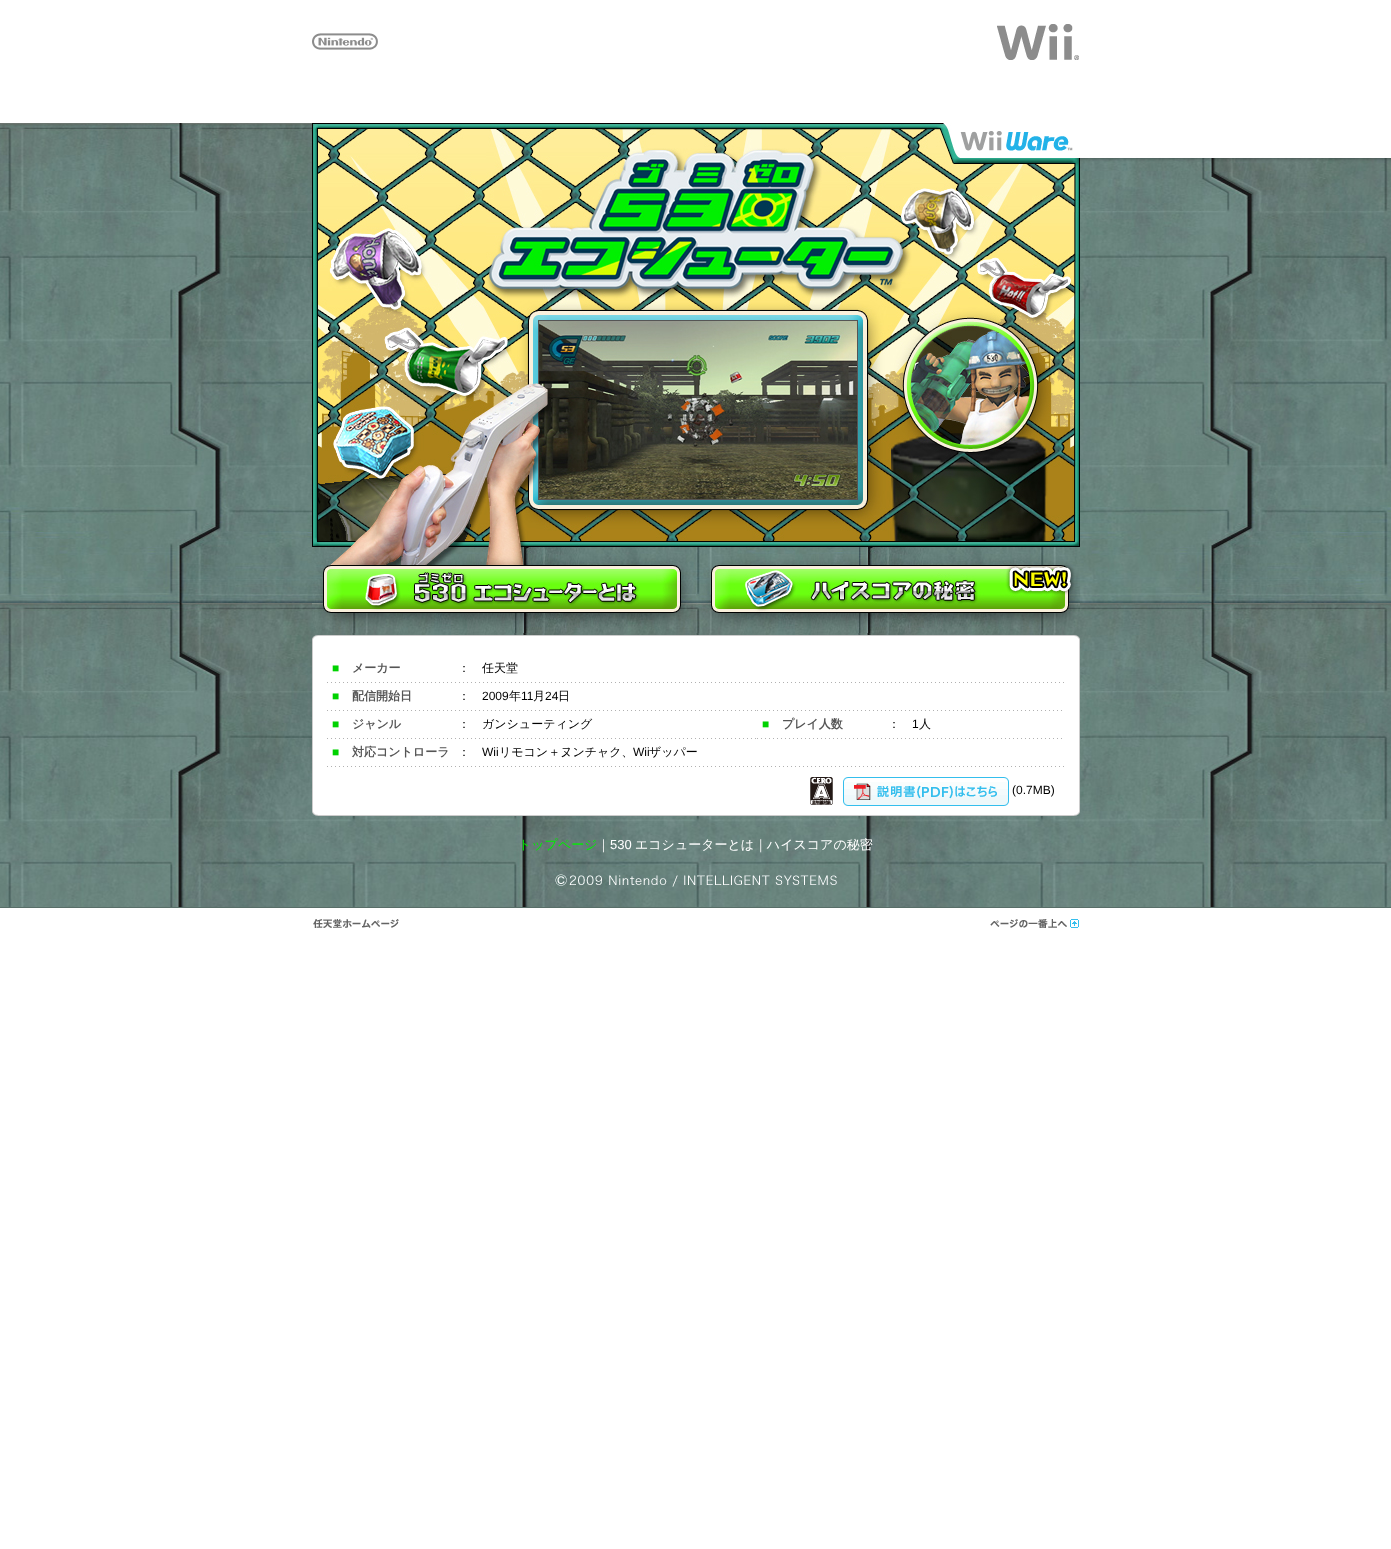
(async () => {
const canvas = document.querySelector("canvas")
canvas.width = 1391
canvas.height = 1549
const c = canvas.getContext("2d")
c.miterLimit = 4
c.fontKerning = "normal"
function T(s,x,y){c.fillText(s,x,y)}
function R(x,y,w,h){c.fillRect(x,y,w,h)}
async function I(src,x,y,w,h){const img=new Image();img.src=src;await img.decode();c.drawImage(img,x,y,w,h)}
c.fillStyle="#fff"
R(0,0,1391,1549)
await I("1.png",312,33,66,17)
await I("2.png",997,24,82,36)
await I("3.png",0,123,1391,784)
await I("4.png",10,123,1381,40)
await I("5.png",312,123,384,442)
await I("6.png",696,123,384,442)
await I("7.png",960,131,113,20)
await I("8.png",486,148,426,152)
await I("9.png",312,565,384,68)
await I("10.png",696,565,384,68)
await I("11.png",312,635,768,20)
R(313,655,766,151)
c.fillStyle="#ccc"
R(1079,655,1,151)
R(312,655,1,151)
c.font="bold 12px Liberation Sans"
c.fillStyle="#00d200"
T("■",332,672)
c.font="bold 12px WenQuanYi Zen Hei"
c.fillStyle="#555"
T("メーカー",352,672)
await I("12.png",327,682,737,1)
c.font="500 12px WenQuanYi Zen Hei"
c.fillStyle="#000"
T("：　任天堂",458,672)
c.font="bold 12px Liberation Sans"
c.fillStyle="#00d200"
T("■",332,700)
c.font="bold 12px WenQuanYi Zen Hei"
c.fillStyle="#555"
T("配信開始日",352,700)
await I("13.png",327,710,429,1)
c.font="500 12px WenQuanYi Zen Hei"
c.fillStyle="#000"
T("：",458,700)
c.font="12px Liberation Sans"
T("2009",482,700)
c.font="500 12px WenQuanYi Zen Hei"
T("年",509,700)
c.font="12px Liberation Sans"
T("11",521,700)
c.font="500 12px WenQuanYi Zen Hei"
T("月",533,700)
c.font="12px Liberation Sans"
T("24",545,700)
c.font="500 12px WenQuanYi Zen Hei"
T("日",558,700)
await I("14.png",757,710,305,1)
c.font="bold 12px Liberation Sans"
c.fillStyle="#00d200"
T("■",332,728)
c.font="bold 12px WenQuanYi Zen Hei"
c.fillStyle="#555"
T("ジャンル",352,728)
await I("13.png",327,738,429,1)
c.font="500 12px WenQuanYi Zen Hei"
c.fillStyle="#000"
T("：　ガンシューティング",458,728)
c.font="bold 12px Liberation Sans"
c.fillStyle="#00d200"
T("■",762,728)
c.font="bold 12px WenQuanYi Zen Hei"
c.fillStyle="#555"
T("プレイ人数",782,728)
await I("14.png",757,738,305,1)
c.font="500 12px WenQuanYi Zen Hei"
c.fillStyle="#000"
T("：",888,728)
c.font="12px Liberation Sans"
T("1",912,728)
c.font="500 12px WenQuanYi Zen Hei"
T("人",919,728)
c.font="bold 12px Liberation Sans"
c.fillStyle="#00d200"
T("■",332,756)
c.font="bold 12px WenQuanYi Zen Hei"
c.fillStyle="#555"
T("対応コントローラ",352,756)
await I("12.png",327,766,737,1)
c.font="500 12px WenQuanYi Zen Hei"
c.fillStyle="#000"
T("：",458,756)
c.font="12px Liberation Sans"
T("Wii",482,756)
c.font="500 12px WenQuanYi Zen Hei"
T("リモコン＋ヌンチャク、",499,756)
c.font="12px Liberation Sans"
T("Wii",633,756)
c.font="500 12px WenQuanYi Zen Hei"
T("ザッパー",649,756)
await I("15.png",810,777,23,28)
await I("16.png",843,777,166,29)
c.font="12px Liberation Sans"
T("(0.7MB)",1012,794)
await I("17.png",312,806,768,10)
c.font="500 13px WenQuanYi Zen Hei"
c.fillStyle="#00f000"
T("トップページ",518,849)
c.fillStyle="#fff"
T("｜",597,849)
c.font="13px Liberation Sans"
T("530",610,849)
c.font="500 13px WenQuanYi Zen Hei"
T("エコシューターとは｜ハイスコアの秘密",635,849)
await I("18.png",555,874,282,13)
c.fillStyle="#586e68"
R(0,907,1391,1)
await I("19.png",313,919,86,9)
await I("20.png",990,919,89,9)
})()
